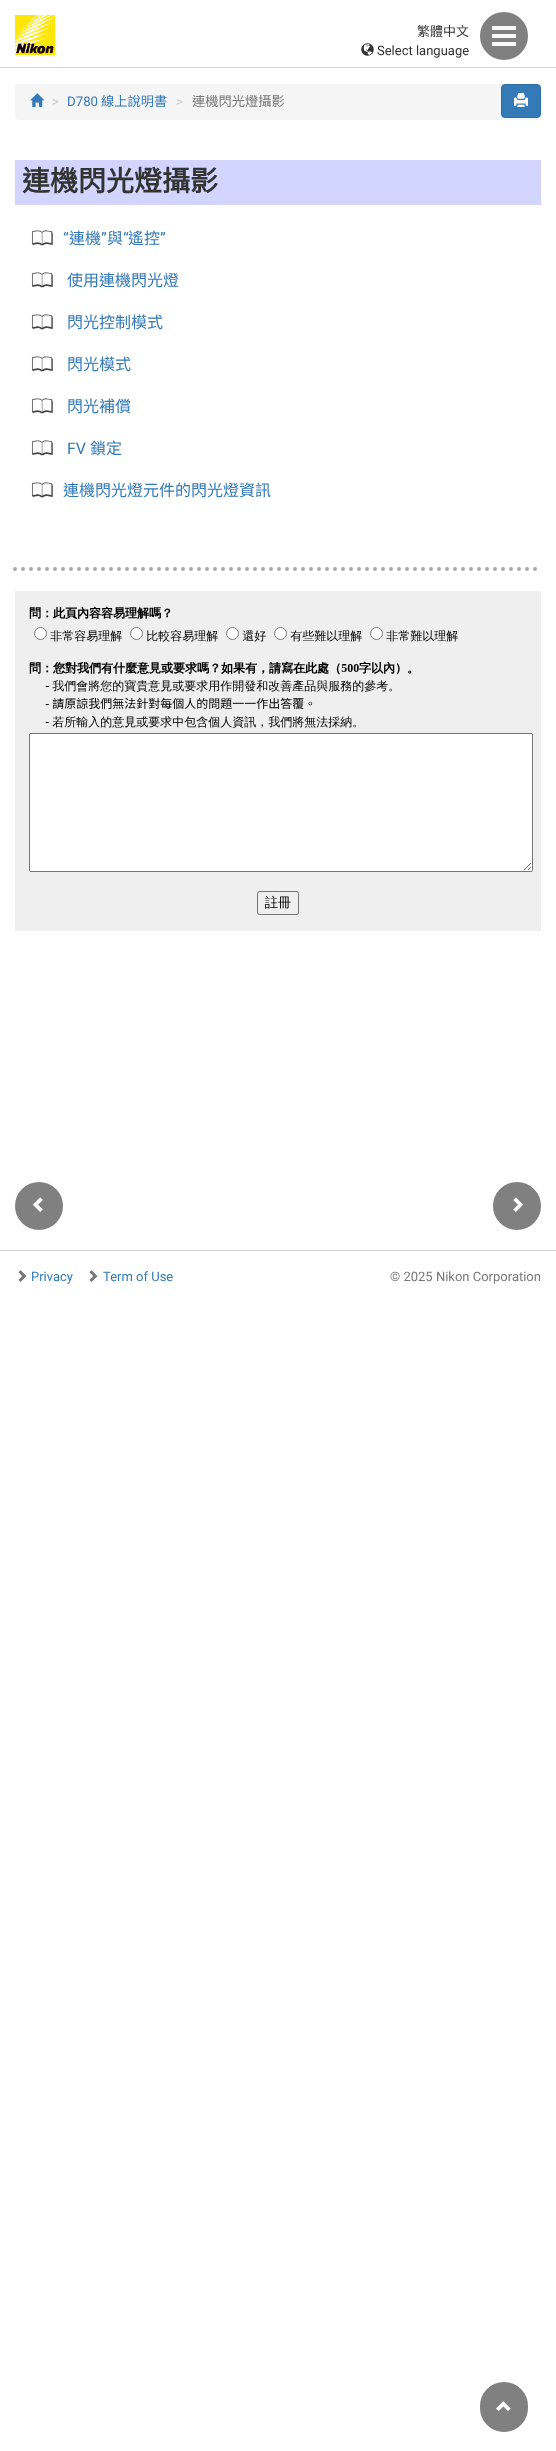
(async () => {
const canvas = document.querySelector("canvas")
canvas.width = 556
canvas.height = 2451
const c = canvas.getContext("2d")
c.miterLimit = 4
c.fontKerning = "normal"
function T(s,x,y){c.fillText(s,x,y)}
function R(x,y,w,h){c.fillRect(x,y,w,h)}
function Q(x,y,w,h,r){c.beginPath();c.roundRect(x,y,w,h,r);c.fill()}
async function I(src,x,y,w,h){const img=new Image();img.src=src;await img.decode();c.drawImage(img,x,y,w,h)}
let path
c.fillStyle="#fff"
R(0,0,556,2451)
c.fillStyle="#808080"
c.beginPath()
c.arc(504,36,23,0,7)
c.fill()
c.strokeStyle="#808080"
c.lineWidth=2
c.stroke()
c.fillStyle="#f8f8f8"
R(492,34,24,4)
R(492,26,24,4)
R(492,42,24,4)
c.fillStyle="#d4d4d4"
R(0,67,556,1)
await I("1.png",15,15,40,40)
c.font="13px Noto Sans CJK TC"
c.fillStyle="#333"
T("繁體中文",417,36)
await I("2.png",361,43,13,13)
c.font="13px Roboto"
T("Select language",377,55)
c.fillStyle="#f5f5f5"
Q(15,84,526,36,4)
await I("3.png",30,93,15,14)
c.font="13.25px Roboto"
c.fillStyle="#ccc"
T(">",52,106)
c.fillStyle="#337ab7"
T("D780",67,106)
c.font="13.25px Noto Sans CJK TC"
T("線上說明書",101,106)
c.font="13.25px Roboto"
c.fillStyle="#ccc"
T(">",176,106)
c.font="13.25px Noto Sans CJK TC"
c.fillStyle="#777"
T("連機閃光燈攝影",192,106)
c.fillStyle="#337ab7"
c.beginPath()
c.roundRect(501.5,84.5,39,33,3.5)
c.fill()
c.strokeStyle="#2e6da4"
c.lineWidth=1
c.stroke()
await I("4.png",514,93,14,14)
c.fillStyle="#d1d5ff"
R(15,160,526,45)
c.font="bold 28px Noto Sans CJK TC"
c.fillStyle="#333"
T("連機閃光燈攝影",22,191)
c.font="500 24px '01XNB'"
c.fillStyle="#444"
T("0",31,246)
c.font="16px Roboto"
c.fillStyle="#337ab7"
T("“",63,244)
c.font="16px Noto Sans CJK TC"
T("連機",69,244)
c.font="16px Roboto"
T("”",101,244)
c.font="16px Noto Sans CJK TC"
T("與",107,244)
c.font="16px Roboto"
T("“",123,244)
c.font="16px Noto Sans CJK TC"
T("遙控",128,244)
c.font="16px Roboto"
T("”",160,244)
c.font="500 24px '01XNB'"
c.fillStyle="#444"
T("0",31,288)
c.font="16px Noto Sans CJK TC"
c.fillStyle="#337ab7"
T("使用連機閃光燈",67,286)
c.font="500 24px '01XNB'"
c.fillStyle="#444"
T("0",31,330)
c.font="16px Noto Sans CJK TC"
c.fillStyle="#337ab7"
T("閃光控制模式",67,328)
c.font="500 24px '01XNB'"
c.fillStyle="#444"
T("0",31,372)
c.font="16px Noto Sans CJK TC"
c.fillStyle="#337ab7"
T("閃光模式",67,370)
c.font="500 24px '01XNB'"
c.fillStyle="#444"
T("0",31,414)
c.font="16px Noto Sans CJK TC"
c.fillStyle="#337ab7"
T("閃光補償",67,412)
c.font="500 24px '01XNB'"
c.fillStyle="#444"
T("0",31,456)
c.font="16px Roboto"
c.fillStyle="#337ab7"
T("FV",67,454)
c.font="16px Noto Sans CJK TC"
T("鎖定",90,454)
c.font="500 24px '01XNB'"
c.fillStyle="#444"
T("0",31,498)
c.font="16px Noto Sans CJK TC"
c.fillStyle="#337ab7"
T("連機閃光燈元件的閃光燈資訊",63,496)
path = new Path2D("M15 569h526")
c.strokeStyle="#aaa"
c.lineWidth=4
c.lineCap="round"
c.setLineDash([0,8])
c.stroke(path)
await I("5.png",15,591,526,340)
c.fillStyle="#808080"
c.beginPath()
c.arc(39,1206,23,0,7)
c.fill()
c.strokeStyle="#808080"
c.lineWidth=2
c.setLineDash([])
c.stroke()
await I("6.png",32,1197,11,15)
c.beginPath()
c.arc(517,1206,23,0,7)
c.fill()
c.stroke()
await I("7.png",513,1197,11,15)
c.beginPath()
c.roundRect(481,2383,46,48,23)
c.fill()
c.stroke()
await I("8.png",496,2401,15,10)
c.fillStyle="#d4d4d4"
R(0,1250,556,1)
await I("9.png",18,1270,9,12)
c.font="13px Roboto"
c.fillStyle="#337ab7"
T("Privacy",31,1281)
await I("9.png",89,1270,9,12)
T("Term of Use",103,1281)
c.fillStyle="#777"
T("© 2025 Nikon Corporation",390,1281)
})()
